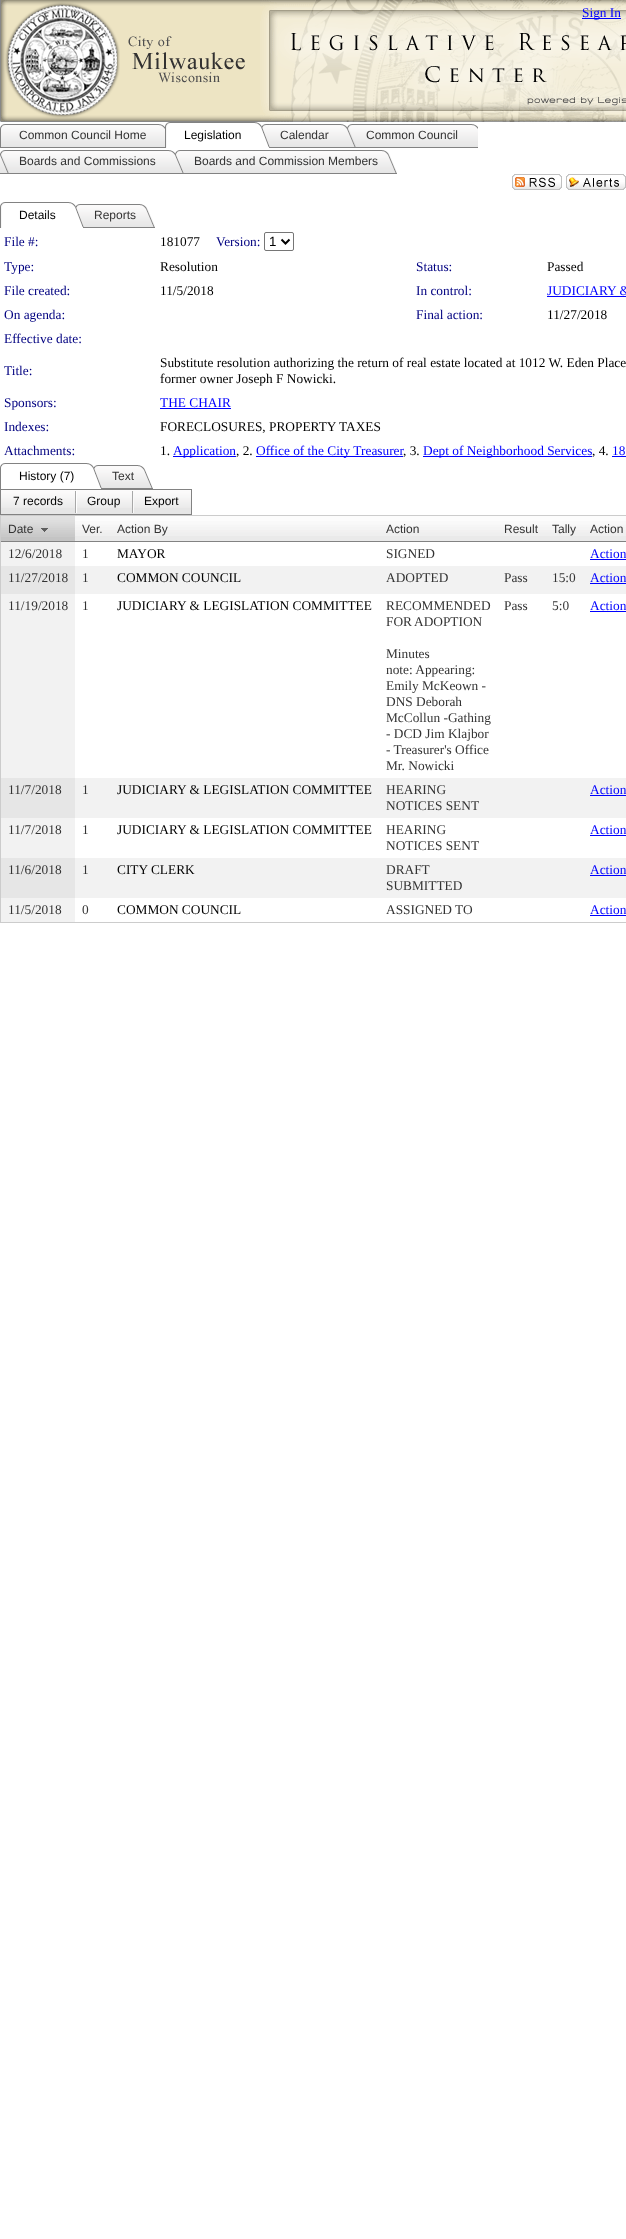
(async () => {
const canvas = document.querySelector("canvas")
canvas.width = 626
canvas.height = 2239
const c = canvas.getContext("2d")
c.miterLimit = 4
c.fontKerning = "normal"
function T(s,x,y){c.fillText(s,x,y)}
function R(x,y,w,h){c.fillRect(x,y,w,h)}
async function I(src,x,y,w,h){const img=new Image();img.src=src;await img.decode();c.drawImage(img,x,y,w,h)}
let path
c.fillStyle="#fff"
R(0,0,626,2239)
await I("1.png",245,0,15,122)
await I("2.png",0,0,245,122)
await I("3.png",260,0,366,122)
c.fillStyle="#00f"
R(582,18,39,1)
c.font="13.35px Liberation Serif"
T("Sign In",582,17)
await I("4.png",0,124,9,24)
await I("5.png",9,124,156,24)
c.font="12px Liberation Sans"
c.fillStyle="#333"
T("Common Council Home",19,139)
await I("6.png",165,122,10,26)
await I("7.png",174,122,87,5)
c.fillStyle="#000"
T("Legislation",184,139)
await I("8.png",261,124,9,24)
await I("9.png",270,124,77,24)
c.fillStyle="#333"
T("Calendar",280,139)
await I("10.png",347,124,9,24)
await I("11.png",356,124,122,24)
T("Common Council",366,139)
await I("10.png",0,150,9,24)
await I("12.png",9,150,166,24)
T("Boards and Commissions",19,165)
await I("13.png",175,150,9,24)
await I("14.png",184,150,213,24)
T("Boards and Commission Members",194,165)
await I("15.png",512,174,50,16)
await I("16.png",566,174,60,16)
await I("6.png",0,202,10,26)
await I("17.png",9,202,66,5)
c.fillStyle="#000"
T("Details",19,219)
await I("18.png",75,204,9,24)
await I("19.png",84,204,71,24)
c.fillStyle="#333"
T("Reports",94,219)
c.font="13.35px Liberation Serif"
c.fillStyle="#000080"
T("File #:",4,246)
c.fillStyle="#000"
T("181077",160,246)
c.fillStyle="#000080"
T("Version:",216,246)
c.beginPath()
c.roundRect(264.5,232.5,29,18,1.5)
c.strokeStyle="#767676"
c.stroke()
path = new Path2D("M281.5 239.5l4 4l4-4")
c.strokeStyle="#000"
c.lineWidth=2
c.stroke(path)
c.font="13.35px Liberation Sans"
c.fillStyle="#000"
T("1",269,246)
c.font="13.35px Liberation Serif"
c.fillStyle="#000080"
T("Type:",4,271)
c.fillStyle="#000"
T("Resolution",160,271)
c.fillStyle="#000080"
T("Status:",416,271)
c.fillStyle="#000"
T("Passed",547,271)
c.fillStyle="#000080"
T("File created:",4,295)
c.fillStyle="#000"
T("11/5/2018",160,295)
c.fillStyle="#000080"
T("In control:",416,295)
c.fillStyle="#00f"
T("JUDICIARY &",547,295)
R(547,296,79,1)
c.fillStyle="#000080"
T("On agenda:",4,319)
T("Final action:",416,319)
c.fillStyle="#000"
T("11/27/2018",547,319)
c.fillStyle="#000080"
T("Effective date:",4,343)
T("Title:",4,375)
c.fillStyle="#000"
T("Substitute resolution authorizing the return of real estate located at 1012 W. Eden Place",160,367)
T("former owner Joseph F Nowicki.",160,383)
c.fillStyle="#000080"
T("Sponsors:",4,407)
c.fillStyle="#00f"
T("THE CHAIR",160,407)
R(160,408,71,1)
c.fillStyle="#000080"
T("Indexes:",4,431)
c.fillStyle="#000"
T("FORECLOSURES, PROPERTY TAXES",160,431)
c.fillStyle="#000080"
T("Attachments:",4,455)
c.fillStyle="#000"
T("1.",160,455)
c.fillStyle="#00f"
R(173,456,63,1)
T("Application",173,455)
c.fillStyle="#000"
T(", 2.",236,455)
c.fillStyle="#00f"
R(256,456,147,1)
T("Office of the City Treasurer",256,455)
c.fillStyle="#000"
T(", 3.",403,455)
c.fillStyle="#00f"
R(423,456,169,1)
T("Dept of Neighborhood Services",423,455)
c.fillStyle="#000"
T(", 4.",592,455)
c.fillStyle="#00f"
T("18",612,455)
R(612,456,14,1)
await I("20.png",0,463,9,26)
await I("21.png",9,463,84,5)
c.font="12px Liberation Sans"
c.fillStyle="#000"
T("History (7)",19,480)
await I("18.png",93,465,9,24)
await I("22.png",102,465,51,24)
c.fillStyle="#333"
T("Text",112,480)
c.fillStyle="#e6e6e6"
R(1,508,190,6)
await I("23.png",1,490,190,18)
c.strokeStyle="#828282"
c.lineWidth=1
c.strokeRect(.5,489.5,191,25)
c.fillStyle="#000"
T("7 records",13,505)
await I("24.png",75,491,2,22)
T("Group",87,505)
await I("25.png",132,491,2,22)
T("Export",144,505)
c.strokeStyle="#ccc"
c.strokeRect(.5,515.5,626,407)
c.fillStyle="#c4c4c4"
R(1,537,74,4)
await I("26.png",1,516,74,21)
c.fillStyle="#828282"
R(1,541,625,1)
c.fillStyle="#333"
T("Date",8,533)
await I("27.png",41,528,7,4)
c.fillStyle="#eaeaea"
R(75,536,551,5)
await I("28.png",75,516,35,20)
c.fillStyle="#333"
T("Ver.",82,533)
await I("29.png",110,516,269,20)
T("Action By",117,533)
await I("30.png",379,516,118,20)
T("Action",386,533)
await I("31.png",497,516,48,20)
T("Result",504,533)
await I("32.png",545,516,38,20)
T("Tally",552,533)
await I("33.png",583,516,43,20)
T("Action",590,533)
c.fillStyle="#f2f2f2"
R(1,542,74,24)
c.font="13.35px Liberation Serif"
c.fillStyle="#333"
T("12/6/2018",8,558)
T("1",82,558)
c.fillStyle="#000"
T("MAYOR",117,558)
c.fillStyle="#333"
T("SIGNED",386,558)
c.fillStyle="#00f"
T("Action",590,558)
R(590,559,36,1)
c.fillStyle="#f2f2f2"
R(75,566,551,28)
c.fillStyle="#e6e6e6"
R(1,566,74,28)
c.fillStyle="#333"
T("11/27/2018",8,582)
T("1",82,582)
c.fillStyle="#000"
T("COMMON COUNCIL",117,582)
c.fillStyle="#333"
T("ADOPTED",386,582)
T("Pass",504,582)
T("15:0",552,582)
c.fillStyle="#00f"
T("Action",590,582)
R(590,583,36,1)
c.fillStyle="#f2f2f2"
R(1,594,74,184)
c.fillStyle="#333"
T("11/19/2018",8,610)
T("1",82,610)
c.fillStyle="#000"
T("JUDICIARY & LEGISLATION COMMITTEE",117,610)
c.fillStyle="#333"
T("RECOMMENDED",386,610)
T("FOR",386,626)
T("ADOPTION",414,626)
T("Minutes",386,658)
T("note: Appearing:",386,674)
T("Emily McKeown -",386,690)
T("DNS Deborah",386,706)
T("McCollun -Gathing",386,722)
T("- DCD Jim Klajbor",386,738)
T("- Treasurer's Office",386,754)
T("Mr. Nowicki",386,770)
T("Pass",504,610)
T("5:0",552,610)
c.fillStyle="#00f"
T("Action",590,610)
R(590,611,36,1)
c.fillStyle="#f2f2f2"
R(75,778,551,40)
c.fillStyle="#e6e6e6"
R(1,778,74,40)
c.fillStyle="#333"
T("11/7/2018",8,794)
T("1",82,794)
c.fillStyle="#000"
T("JUDICIARY & LEGISLATION COMMITTEE",117,794)
c.fillStyle="#333"
T("HEARING",386,794)
T("NOTICES SENT",386,810)
c.fillStyle="#00f"
T("Action",590,794)
R(590,795,36,1)
c.fillStyle="#f2f2f2"
R(1,818,74,40)
c.fillStyle="#333"
T("11/7/2018",8,834)
T("1",82,834)
c.fillStyle="#000"
T("JUDICIARY & LEGISLATION COMMITTEE",117,834)
c.fillStyle="#333"
T("HEARING",386,834)
T("NOTICES SENT",386,850)
c.fillStyle="#00f"
T("Action",590,834)
R(590,835,36,1)
c.fillStyle="#f2f2f2"
R(75,858,551,40)
c.fillStyle="#e6e6e6"
R(1,858,74,40)
c.fillStyle="#333"
T("11/6/2018",8,874)
T("1",82,874)
c.fillStyle="#000"
T("CITY CLERK",117,874)
c.fillStyle="#333"
T("DRAFT",386,874)
T("SUBMITTED",386,890)
c.fillStyle="#00f"
T("Action",590,874)
R(590,875,36,1)
c.fillStyle="#f2f2f2"
R(1,898,74,24)
c.fillStyle="#333"
T("11/5/2018",8,914)
T("0",82,914)
c.fillStyle="#000"
T("COMMON COUNCIL",117,914)
c.fillStyle="#333"
T("ASSIGNED TO",386,914)
c.fillStyle="#00f"
T("Action",590,914)
R(590,915,36,1)
})()
